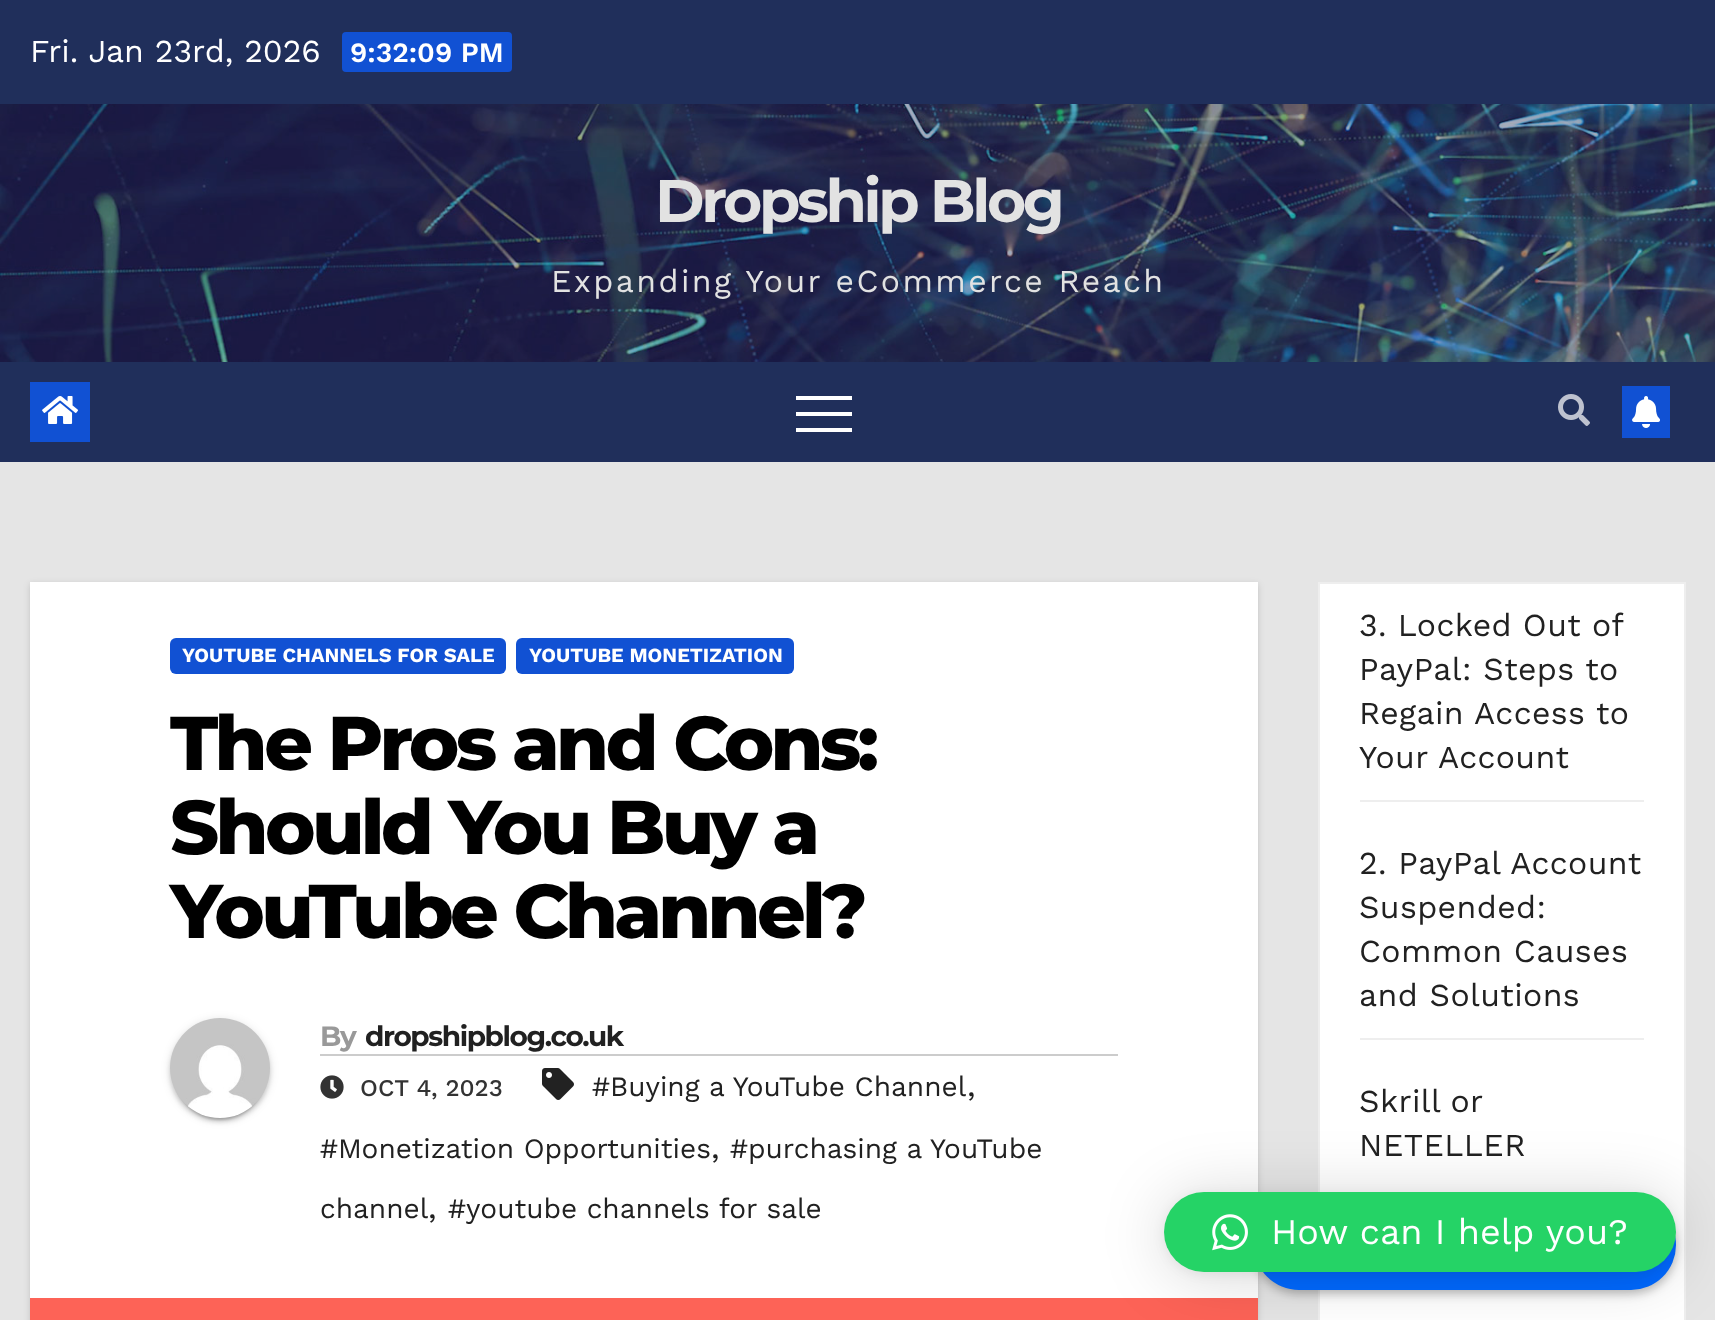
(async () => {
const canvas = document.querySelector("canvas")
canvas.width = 1715
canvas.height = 1320
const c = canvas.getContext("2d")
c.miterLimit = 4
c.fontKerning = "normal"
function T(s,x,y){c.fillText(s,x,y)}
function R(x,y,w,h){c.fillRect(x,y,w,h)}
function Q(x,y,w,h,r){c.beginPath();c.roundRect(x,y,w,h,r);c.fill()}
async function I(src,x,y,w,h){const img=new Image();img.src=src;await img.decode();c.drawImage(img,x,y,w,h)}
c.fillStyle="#e5e5e5"
R(0,0,1715,1320)
c.fillStyle="#202f5b"
R(0,0,1715,104)
c.font="32px Work Sans"
c.fillStyle="#fff"
T("Fri. Jan 23rd, 2026",30,62)
c.fillStyle="#1151d3"
Q(342,32,170,40,4)
c.font="600 28px Work Sans"
c.fillStyle="#fff"
T("9:32:09 PM",350,62)
await I("1.png",0,104,1715,258)
c.letterSpacing="-3.4px"
c.font="bold 60px Montserrat"
c.fillStyle="#e2e2e2"
T("Dropship Blog",655,222)
c.letterSpacing="2.4px"
c.font="32px Work Sans"
T("Expanding Your eCommerce Reach",551,292)
c.fillStyle="#202f5b"
R(0,362,1715,100)
c.fillStyle="#1151d3"
R(30,382,60,60)
await I("2.png",42,396,36,28)
c.fillStyle="#fff"
R(796,396,56,4)
R(796,412,56,4)
R(796,428,56,4)
await I("3.png",1558,394,32,32)
c.fillStyle="#1151d3"
R(1622,386,48,52)
await I("4.png",1632,396,28,32)
c.fillStyle="#00000026"
c.filter="blur(3px)"
c.beginPath()
c.rect(30,584,1228,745)
c.fill()
c.filter="none"
c.fillStyle="#fff"
R(30,582,1228,716)
c.fillStyle="#1151d3"
Q(170,638,336,36,6)
c.letterSpacing="0px"
c.font="bold 20px Work Sans"
c.fillStyle="#fff"
T("YOUTUBE CHANNELS FOR SALE",182,662)
c.fillStyle="#1151d3"
Q(516,638,278,36,6)
c.fillStyle="#fff"
T("YOUTUBE MONETIZATION",529,662)
c.letterSpacing="-3.75px"
c.font="800 76px Montserrat"
c.fillStyle="#000"
T("The Pros and Cons:",170,770)
T("Should You Buy a",170,854)
T("YouTube Channel?",170,938)
c.fillStyle="#0000001f"
c.filter="blur(5px)"
c.beginPath()
c.roundRect(170,1020,100,100,50)
c.fill()
c.filter="none"
c.fillStyle="#00000033"
c.filter="blur(1px)"
c.beginPath()
c.roundRect(174,1028,92,92,46)
c.fill()
c.filter="none"
c.fillStyle="#00000024"
c.filter="blur(2px)"
c.beginPath()
c.roundRect(170,1022,100,100,50)
c.fill()
c.filter="none"
await I("5.png",170,1018,100,100)
c.fillStyle="#ccc"
R(320,1054,798,2)
c.letterSpacing="-1.4px"
c.font="bold 28px Montserrat"
c.fillStyle="#999"
T("By",320,1046)
c.fillStyle="#212121"
T("dropshipblog.co.uk",365,1046)
await I("6.png",542,1068,32,32)
c.letterSpacing="0px"
c.font="28px Work Sans"
T("#Buying a YouTube Channel",592,1096)
c.font="32px Work Sans"
T(",",967,1096)
c.font="28px Work Sans"
T("#Monetization Opportunities",320,1158)
c.font="32px Work Sans"
T(",",711,1158)
c.font="28px Work Sans"
T("#purchasing a YouTube",730,1158)
T("channel",320,1218)
c.font="32px Work Sans"
T(",",428,1218)
c.font="28px Work Sans"
T("#youtube channels for sale",448,1218)
await I("7.png",320,1075,24,24)
c.font="500 24px Work Sans"
c.fillStyle="#333"
T("OCT 4, 2023",360,1096)
c.fillStyle="#fd6357"
R(30,1298,1228,22)
c.fillStyle="#fff"
c.beginPath()
c.rect(1319,583,366,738)
c.fill()
c.strokeStyle="#eee"
c.lineWidth=2
c.stroke()
c.fillStyle="#eee"
R(1360,800,284,2)
c.letterSpacing="0.4px"
c.wordSpacing="-0.5px"
c.font="32px Work Sans"
c.fillStyle="#212121"
T("3. Locked Out of",1359,636)
c.wordSpacing="0px"
T("PayPal: Steps to",1359,680)
T("Regain Access to",1359,724)
T("Your Account",1359,768)
c.fillStyle="#eee"
R(1360,1038,284,2)
c.fillStyle="#212121"
T("2. PayPal Account",1359,874)
T("Suspended:",1359,918)
T("Common Causes",1359,962)
T("and Solutions",1359,1006)
c.wordSpacing="-1px"
T("Skrill or",1359,1112)
c.wordSpacing="0px"
T("NETELLER",1359,1156)
c.fillStyle="#00000040"
c.filter="blur(5px)"
c.beginPath()
c.roundRect(1254,1204,422,90,45)
c.fill()
c.filter="none"
c.fillStyle="#0069ff"
Q(1254,1200,422,90,45)
c.fillStyle="#00000029"
c.filter="blur(32px)"
c.beginPath()
c.roundRect(1164,1196,512,80,40)
c.fill()
c.filter="none"
c.fillStyle="#0000000f"
c.filter="blur(6px)"
c.beginPath()
c.roundRect(1164,1194,512,80,40)
c.fill()
c.filter="none"
c.fillStyle="#25d366"
Q(1164,1192,512,80,40)
await I("8.png",1212,1214,36,37)
c.letterSpacing="0px"
c.font="36px Work Sans"
c.fillStyle="#fff"
T("How can I help you?",1271,1244)
})()
